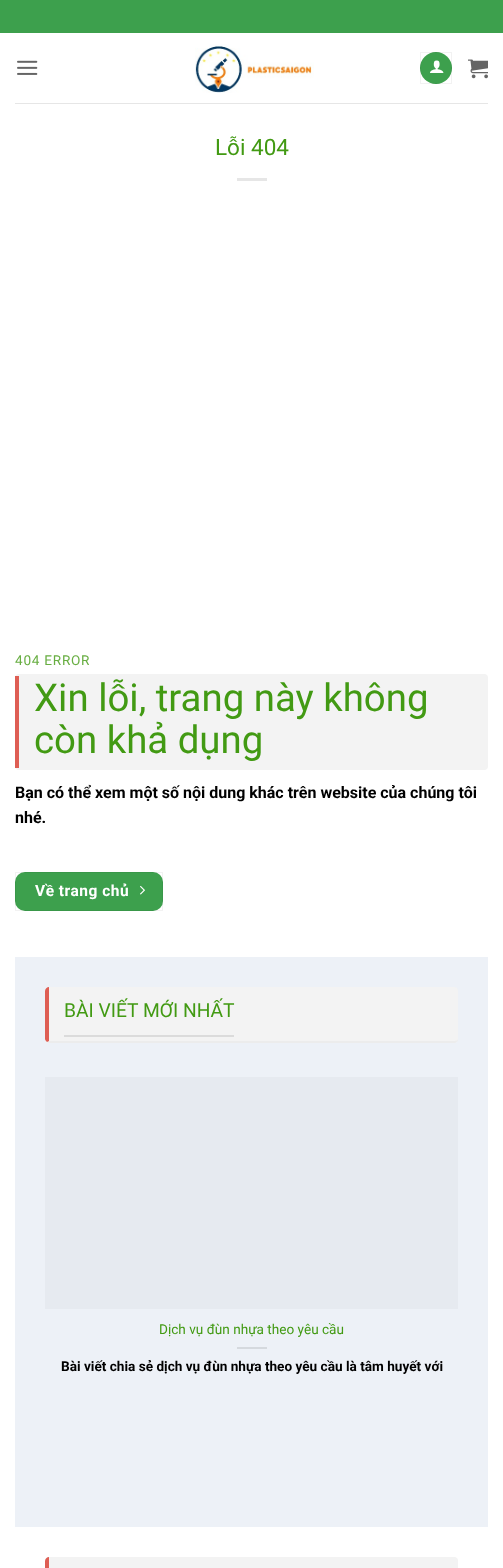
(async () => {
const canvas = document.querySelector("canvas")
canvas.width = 503
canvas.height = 1568
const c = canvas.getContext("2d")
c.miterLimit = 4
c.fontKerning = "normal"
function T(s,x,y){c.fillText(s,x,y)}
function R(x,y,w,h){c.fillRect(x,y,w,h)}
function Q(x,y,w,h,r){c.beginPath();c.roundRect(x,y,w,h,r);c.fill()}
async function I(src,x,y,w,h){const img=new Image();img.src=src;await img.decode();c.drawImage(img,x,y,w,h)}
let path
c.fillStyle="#fff"
R(0,0,503,1568)
c.fillStyle="#3da04d"
R(0,0,503,33)
await I("1.png",17,60,21,15)
await I("2.png",195,44,119,49)
c.beginPath()
c.arc(436,68,16,0,7)
c.fill()
c.strokeStyle="#0000000d"
c.strokeRect(420.5,52.5,31,31)
await I("3.png",430,60,14,13)
await I("4.png",468,59,20,20)
c.fillStyle="#e6e6e6"
R(15,103,473,1)
c.font="22.5px Roboto"
c.fillStyle="#429a13"
T("Lỗi 404",215,155)
c.fillStyle="#e6e6e6"
R(237,178,30,3)
c.letterSpacing="0.75px"
c.font="13.6px Roboto"
c.fillStyle="#68ae42"
T("404 ERROR",15,665)
c.fillStyle="#f3f3f3"
Q(15,674,473,96,4)
c.fillStyle="#de5e54"
R(15,676,4,92)
c.letterSpacing="0px"
c.font="38.4px Roboto"
c.fillStyle="#429a13"
T("Xin lỗi, trang này không",34,711)
T("còn khả dụng",34,753)
c.font="bold 16px Roboto"
c.fillStyle="#000"
T("Bạn có thể xem một số nội dung khác trên website của chúng tôi",15,798)
T("nhé.",15,823)
c.fillStyle="#3da04d"
Q(15,872,148,39,10)
c.strokeRect(15.5,872.5,147,38)
c.letterSpacing="0.5px"
c.font="bold 15.5px Roboto"
c.fillStyle="#fff"
T("Về trang chủ",35,896)
await I("5.png",140,885,5,10)
c.fillStyle="#edf1f7"
R(15,957,473,570)
c.fillStyle="#f3f3f3"
Q(45,987,413,56,4)
c.fillStyle="#ececec"
path = new Path2D("M454 1043c2 0 4-2 4-4c0 1-2 2-4 2h-405l-2 1l2 1z")
c.fill(path)
c.fillStyle="#de5e54"
path = new Path2D("M49 987c-2 0-4 2-4 4v48c0 1 1 2 2 3l2-1z")
c.fill(path)
c.fillStyle="#dbdbdb"
R(64,1035,170,2)
c.letterSpacing="0px"
c.font="19.25px Roboto"
c.fillStyle="#429a13"
T("BÀI VIẾT MỚI NHẤT",64,1017)
c.fillStyle="#e6eaf0"
R(45,1077,413,232)
c.font="13.6px Roboto"
c.fillStyle="#429a13"
T("Dịch vụ đùn nhựa theo yêu cầu",159,1334)
c.fillStyle="#d5d9de"
R(237,1347,30,2)
c.font="bold 13.6px Roboto"
c.fillStyle="#000"
T("Bài viết chia sẻ dịch vụ đùn nhựa theo yêu cầu là tâm huyết với",61,1371)
c.fillStyle="#f3f3f3"
Q(45,1557,413,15,4)
c.fillStyle="#de5e54"
path = new Path2D("M49 1557c-2 0-4 2-4 4v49c0 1 1 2 2 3l2-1z")
c.fill(path)
})()
